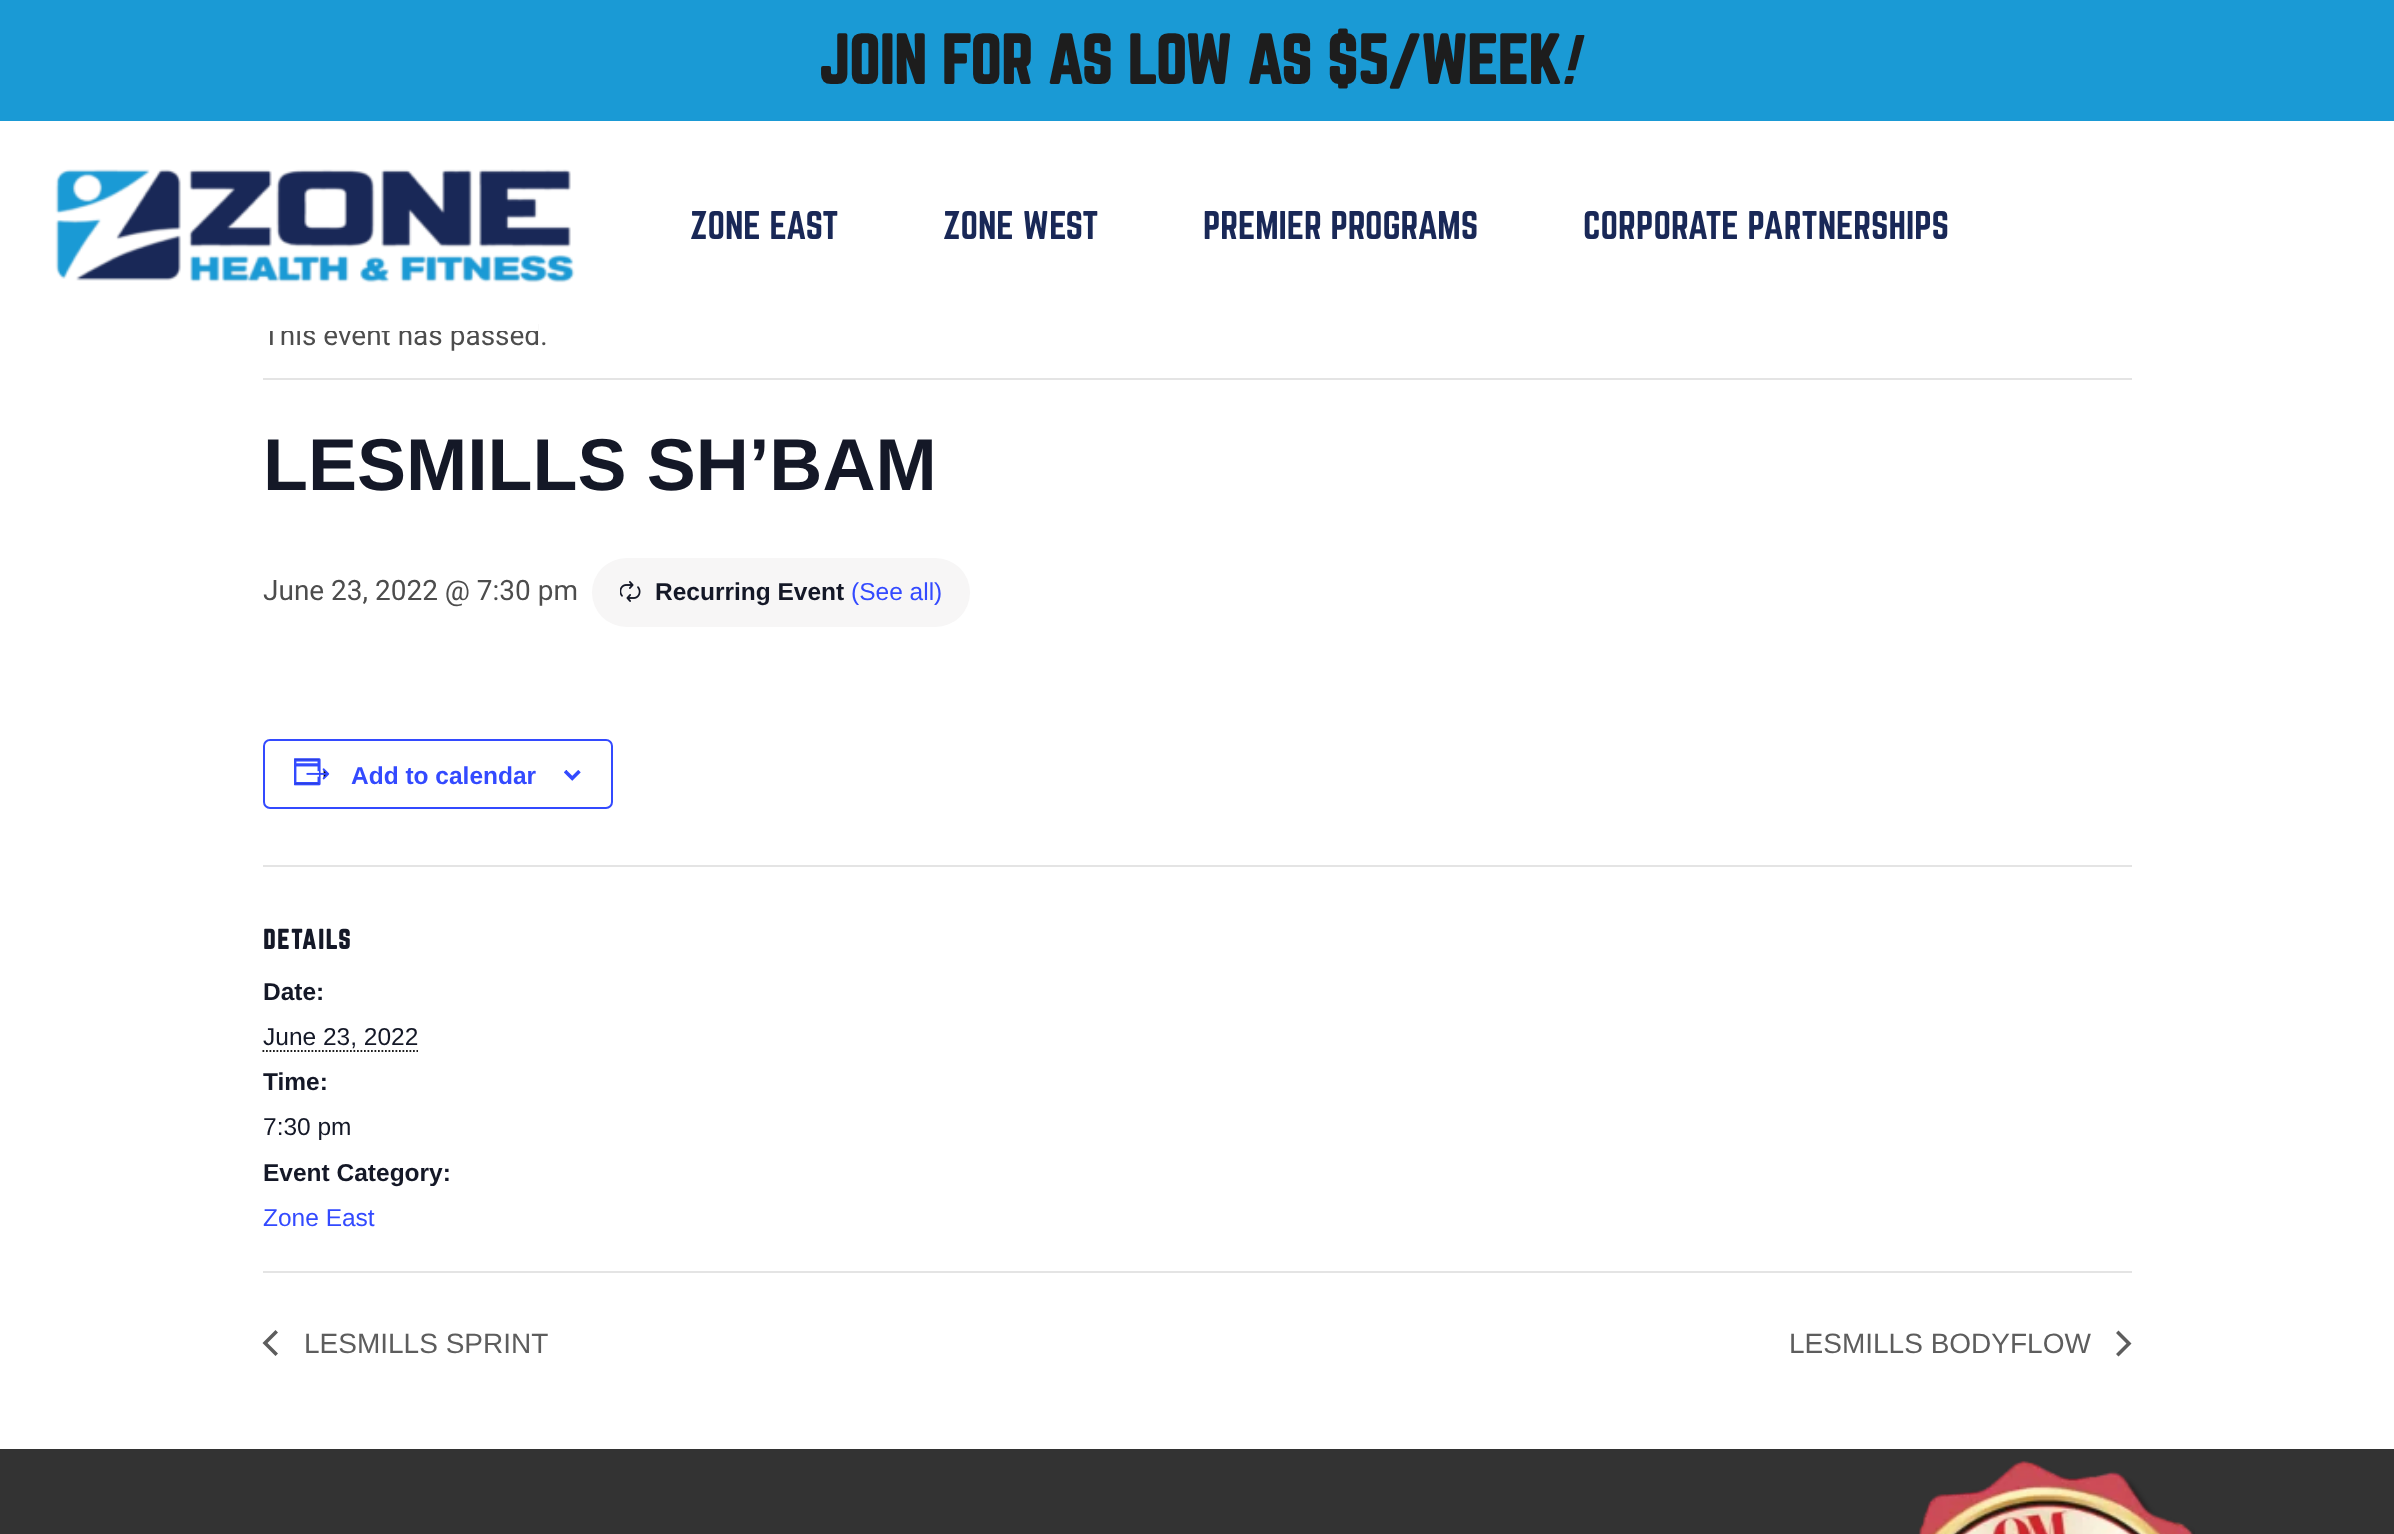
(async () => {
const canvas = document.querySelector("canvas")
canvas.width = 2394
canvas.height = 1534
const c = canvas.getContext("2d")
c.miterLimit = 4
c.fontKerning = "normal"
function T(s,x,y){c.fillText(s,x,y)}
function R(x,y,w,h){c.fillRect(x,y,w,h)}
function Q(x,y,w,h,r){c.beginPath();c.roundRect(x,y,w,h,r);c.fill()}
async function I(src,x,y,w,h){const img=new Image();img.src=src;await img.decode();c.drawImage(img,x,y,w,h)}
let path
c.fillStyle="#fff"
R(0,0,2394,1534)
c.font="28px Roboto"
c.fillStyle="#4d4d4d"
T("This event has passed.",263,345)
c.fillStyle="#fff"
R(263,324,275,7)
c.fillStyle="#1a9ad5"
R(0,0,2394,121)
c.font="bold 61.25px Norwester"
c.fillStyle="#1d1d1d"
T("JOIN FOR AS LOW AS $5/WEEK",818,84)
c.font="italic 61.25px Norwester"
T("!",1561,84)
await I("1.png",55,169,520,114)
c.font="35px Norwester"
c.fillStyle="#192857"
T("ZONE EAST",690,239)
T("ZONE WEST",943,239)
T("PREMIER PROGRAMS",1203,239)
T("CORPORATE PARTNERSHIPS",1583,239)
c.fillStyle="#e4e4e4"
R(263,378,1869,2)
c.font="bold 73.5px Liberation Sans"
c.fillStyle="#141827"
T("LESMILLS SH’BAM",263,490)
c.font="28px Roboto"
c.fillStyle="#4d4d4d"
T("June 23, 2022 @ 7:30 pm",263,600)
c.fillStyle="#f7f6f6"
Q(592,558,378,69,34.5)
await I("2.png",620,581,21,21)
c.font="bold 24.5px Liberation Sans"
c.fillStyle="#141827"
T("Recurring Event",655,600)
c.font="24.5px Liberation Sans"
c.fillStyle="#334aff"
T("(See all)",851,600)
c.beginPath()
c.roundRect(264,740,348,68,6)
c.strokeStyle="#334aff"
c.lineWidth=2
c.stroke()
await I("3.png",294,758,36,28)
c.font="bold 24.5px Liberation Sans"
T("Add to calendar",351,784)
await I("4.png",564,770,17,11)
c.fillStyle="#e4e4e4"
R(263,865,1869,2)
c.letterSpacing="1.75px"
c.font="bold 24.5px Norwester"
c.fillStyle="#141827"
T("DETAILS",263,949)
c.letterSpacing="0px"
c.font="bold 24.5px Liberation Sans"
T("Date:",263,1000)
c.font="24.5px Liberation Sans"
T("June 23, 2022",263,1045)
path = new Path2D("M262.5 1051h155.5")
c.strokeStyle="#1d1d1d"
c.lineWidth=1.8
c.setLineDash([1.75,1.75])
c.stroke(path)
c.save()
c.beginPath()
c.rect(263,683,1869,588)
c.clip()
c.font="bold 24.5px Liberation Sans"
T("Time:",263,1090)
c.restore()
T("7:30 pm",263,1135)
c.font="bold 24.5px Liberation Sans"
T("Event Category:",263,1181)
c.font="24.5px Liberation Sans"
c.fillStyle="#334aff"
T("Zone East",263,1226)
c.fillStyle="#e4e4e4"
R(263,1271,1869,2)
c.fillStyle="#5d5d5d"
path = new Path2D("M278 1353.5l-2.5 2.5l-13-13l13-13l2.5 2.5l-10.5 10.5z")
c.fill(path)
c.font="28px Liberation Sans"
T("LESMILLS SPRINT",304,1353)
T("LESMILLS BODYFLOW",1789,1353)
path = new Path2D("M2116 1333l2.5-2.5l13 13l-13 13l-2.5-2.5l10.5-10.5z")
c.fill(path)
c.fillStyle="#333"
R(0,1449,2394,85)
await I("5.png",1918,1460,277,74)
})()
